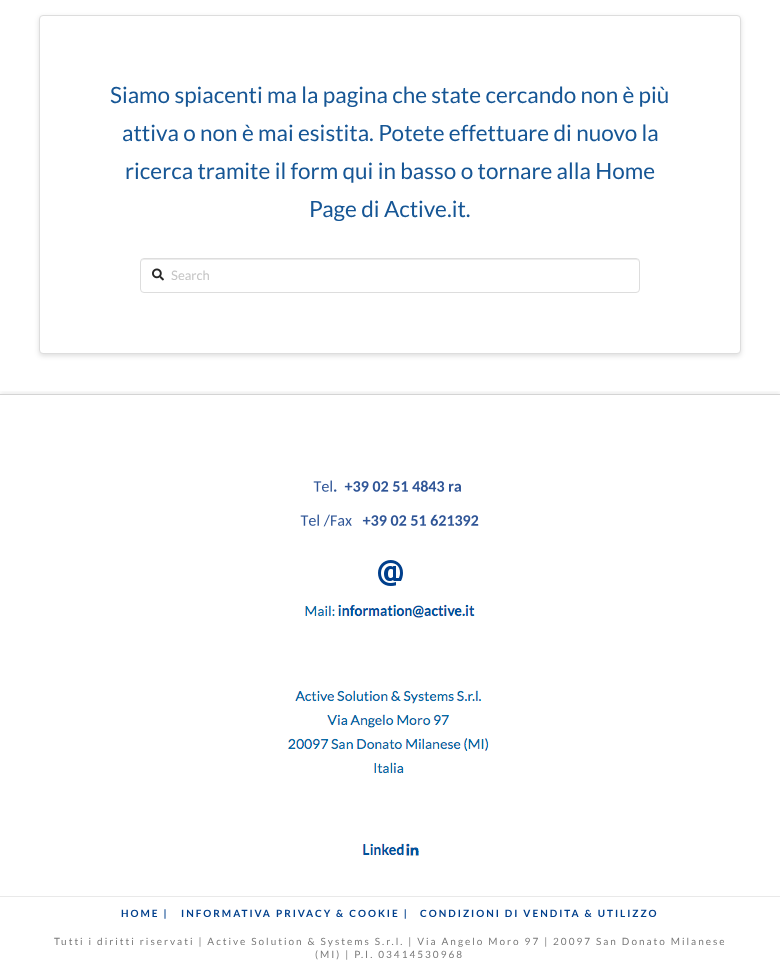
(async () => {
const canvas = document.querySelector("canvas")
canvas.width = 780
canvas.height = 974
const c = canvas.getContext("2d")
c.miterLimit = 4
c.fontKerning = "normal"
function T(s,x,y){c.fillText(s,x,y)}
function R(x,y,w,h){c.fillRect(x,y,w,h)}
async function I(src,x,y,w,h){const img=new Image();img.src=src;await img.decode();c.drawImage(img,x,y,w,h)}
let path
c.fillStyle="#fff"
R(0,0,780,974)
c.fillStyle="#00000021"
c.filter="blur(2.5px)"
c.beginPath()
c.roundRect(39,17,702,339,4)
c.fill()
c.filter="none"
c.fillStyle="#fff"
c.beginPath()
c.roundRect(39.5,15.5,701,338,3.5)
c.fill()
c.strokeStyle="#ddd"
c.stroke()
c.font="22.5px Lato"
c.fillStyle="#165695"
T("Siamo spiacenti ma la pagina che state cercando non è più",110,103)
T("attiva o non è mai esistita. Potete effettuare di nuovo la",122,141)
T("ricerca tramite il form qui in basso o tornare alla Home",125,179)
T("Page di Active.it.",309,217)
c.fillStyle="#ececec"
path = new Path2D("M144 260h492c2 0 3 1 3 3c0-2-1-4-3-4h-492c-2 0-3 2-3 4c0-2 1-3 3-3z")
c.fill(path)
c.beginPath()
c.roundRect(140.5,258.5,499,34,3.5)
c.stroke()
await I("1.png",152,268,12,13)
c.font="13px Lato"
c.fillStyle="#c5c5c5"
T("Search",171,280)
c.save()
c.beginPath()
c.rect(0,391,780,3)
c.clip()
c.fillStyle="#00000012"
c.filter="blur(2px)"
c.beginPath()
c.rect(0,392,780,502)
c.fill()
c.filter="none"
c.restore()
c.fillStyle="#d4d4d4"
R(0,394,780,1)
await I("2.png",313,480,148,12)
await I("3.png",300,514,179,13)
await I("4.png",378,560,25,26)
await I("5.png",305,604,170,14)
await I("6.png",287,690,202,84)
await I("7.png",362,843,57,13)
c.fillStyle="#e9e9e9"
R(0,896,780,1)
c.letterSpacing="2px"
c.font="bold 10px Lato"
c.fillStyle="#003f8c"
T("HOME |",121,917)
T("INFORMATIVA PRIVACY & COOKIE |",181,917)
T("CONDIZIONI DI VENDITA & UTILIZZO",420,917)
c.font="10px Lato"
c.fillStyle="#7a7a7a"
T("Tutti i diritti riservati | Active Solution & Systems S.r.l. | Via Angelo Moro 97 | 20097 San Donato Milanese",54,945)
T("(MI) | P.I. 03414530968",315,958)
})()
